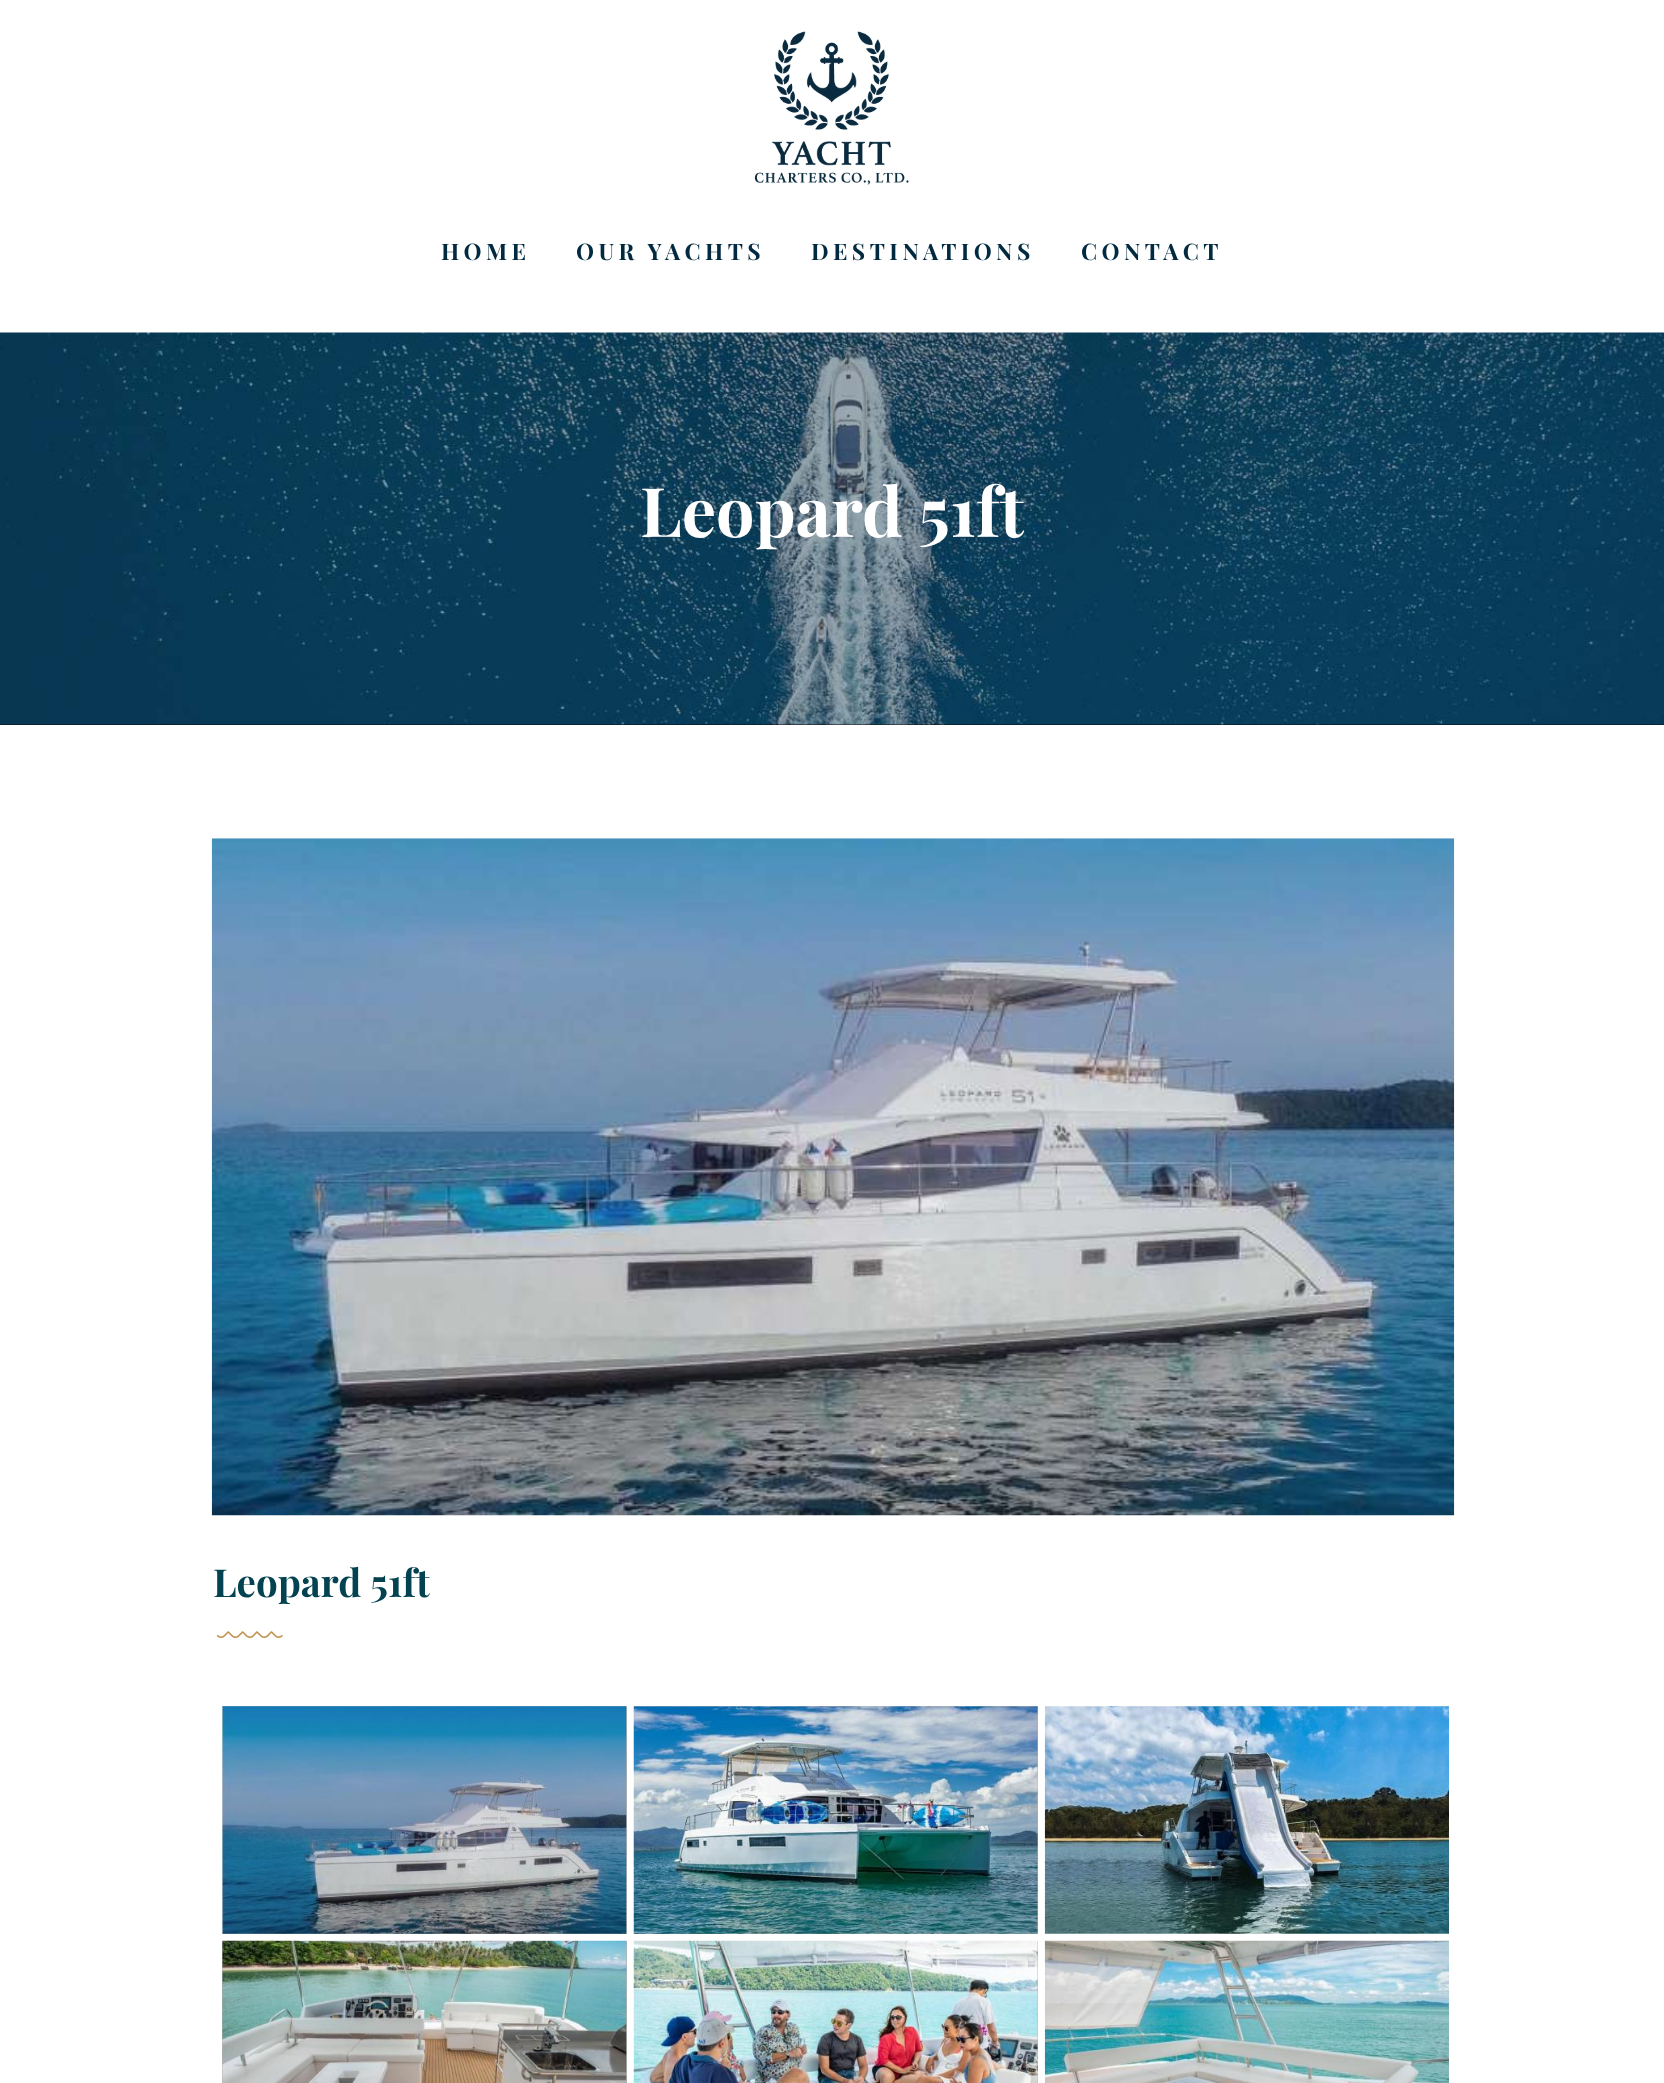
(async () => {
const canvas = document.querySelector("canvas")
canvas.width = 1664
canvas.height = 2083
const c = canvas.getContext("2d")
c.miterLimit = 4
c.fontKerning = "normal"
function T(s,x,y){c.fillText(s,x,y)}
function R(x,y,w,h){c.fillRect(x,y,w,h)}
async function I(src,x,y,w,h){const img=new Image();img.src=src;await img.decode();c.drawImage(img,x,y,w,h)}
c.fillStyle="#fff"
R(0,0,1664,2083)
await I("1.png",754,31,155,154)
c.letterSpacing="4.5px"
c.font="bold 22.75px Playfair Display"
c.fillStyle="#012a40"
T("HOME",441,260)
T("OUR YACHTS",576,260)
T("DESTINATIONS",811,260)
T("CONTACT",1081,260)
c.fillStyle="#0e0d12"
R(0,724,1664,1)
await I("2.png",0,332,1664,393)
c.letterSpacing="0px"
c.font="bold 68.25px Playfair Display"
c.fillStyle="#fff"
T("Leopard 51ft",640,537)
await I("3.png",211,838,1244,678)
c.font="bold 38.5px Playfair Display"
c.fillStyle="#034250"
T("Leopard 51ft",213,1597)
await I("4.png",216,1631,67,7)
c.fillStyle="#b3b3b3"
R(222,1706,405,228)
await I("5.png",222,1706,405,228)
R(634,1706,404,228)
await I("6.png",633,1706,405,228)
await I("7.png",1044,1706,405,228)
R(222,1941,405,142)
await I("8.png",222,1940,405,143)
R(1037,1941,1,142)
await I("9.png",633,1940,405,143)
await I("10.png",1044,1940,405,143)
})()
